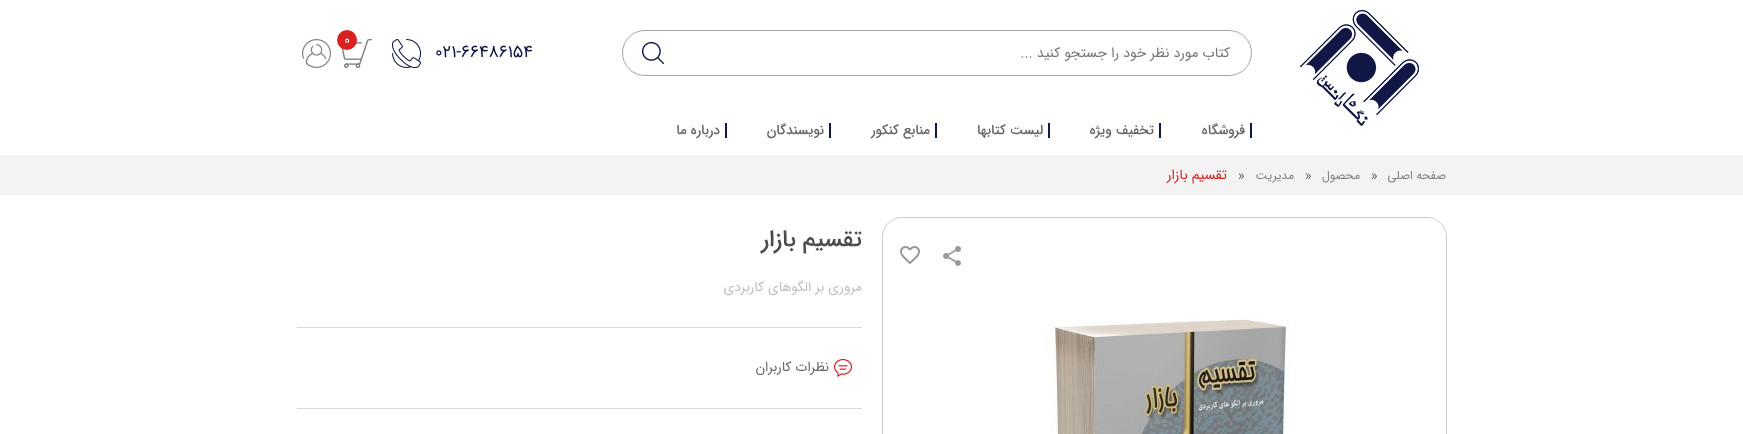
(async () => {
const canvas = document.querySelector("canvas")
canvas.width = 1743
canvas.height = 434
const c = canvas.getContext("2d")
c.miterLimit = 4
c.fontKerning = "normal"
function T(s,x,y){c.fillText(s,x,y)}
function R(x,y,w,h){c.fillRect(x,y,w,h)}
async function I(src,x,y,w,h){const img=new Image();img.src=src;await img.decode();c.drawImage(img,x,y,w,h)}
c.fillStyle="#fff"
R(0,0,1743,434)
await I("1.png",1300,10,119,116)
c.beginPath()
c.roundRect(622.5,30.5,629,45,22.5)
c.strokeStyle="#a6a6a6"
c.stroke()
c.direction="rtl"
c.font="14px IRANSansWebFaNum"
c.fillStyle="#757575"
T("کتاب مورد نظر خود را جستجو کنید ...",1230,57)
await I("2.png",642,42,22,22)
c.direction="ltr"
c.font="17.5px IRANSansWebFaNum"
c.fillStyle="#111846"
T("021-66486154",435,57)
await I("3.png",392,39,29,29)
await I("4.png",341,39,31,29)
c.fillStyle="#d92121"
c.beginPath()
c.arc(347,40,10,0,7)
c.fill()
c.font="14px IRANSansWebFaNum"
c.fillStyle="#fff"
T("0",344,44)
await I("5.png",302,39,29,29)
c.fillStyle="#111846"
R(1250,123,2,15)
c.direction="rtl"
c.font="500 13.6px IRANSansWebFaNum"
c.fillStyle="#666"
T("فروشگاه",1245,134)
c.fillStyle="#111846"
R(1159,123,2,15)
c.fillStyle="#666"
T("تخفیف ویژه",1154,134)
c.fillStyle="#111846"
R(1048,123,2,15)
c.fillStyle="#666"
T("لیست کتابها",1043,134)
c.fillStyle="#111846"
R(935,123,2,15)
c.fillStyle="#666"
T("منابع کنکور",930,134)
c.fillStyle="#111846"
R(829,123,2,15)
c.fillStyle="#666"
T("نویسندگان",824,134)
c.fillStyle="#111846"
R(725,123,2,15)
c.fillStyle="#666"
T("درباره ما",720,134)
c.fillStyle="#f3f3f3"
R(0,155,1743,40)
c.font="12px IRANSansWebFaNum"
c.fillStyle="#808080"
T("صفحه اصلی",1446,179)
c.direction="ltr"
c.font="14px IRANSansWebFaNum"
c.fillStyle="#666"
T("»",1371,180)
c.direction="rtl"
c.font="12px IRANSansWebFaNum"
c.fillStyle="#808080"
T("محصول",1360,179)
c.direction="ltr"
c.font="14px IRANSansWebFaNum"
c.fillStyle="#666"
T("»",1305,180)
c.direction="rtl"
c.font="12px IRANSansWebFaNum"
c.fillStyle="#808080"
T("مدیریت",1294,179)
c.direction="ltr"
c.font="14px IRANSansWebFaNum"
c.fillStyle="#666"
T("»",1238,180)
c.direction="rtl"
c.fillStyle="#d92121"
T("تقسیم بازار",1227,179)
c.beginPath()
c.roundRect(882.5,217.5,564,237,19.5)
c.strokeStyle="#ccc"
c.stroke()
await I("6.png",943,246,18,20)
await I("7.png",900,246,20,19)
await I("8.png",1043,319,247,115)
c.font="500 23.5px IRANSansWebFaNum"
c.fillStyle="#4c4c4c"
T("تقسیم بازار",862,246)
c.font="13.6px IRANSansWebFaNum"
c.fillStyle="#bfbfbf"
T("مروری بر الگوهای کاربردی",862,291)
c.fillStyle="#d9d9d9"
R(297,327,565,1)
await I("9.png",834,359,18,18)
c.fillStyle="#666"
T("نظرات کاربران",829,371)
c.fillStyle="#d9d9d9"
R(297,408,565,1)
})()
